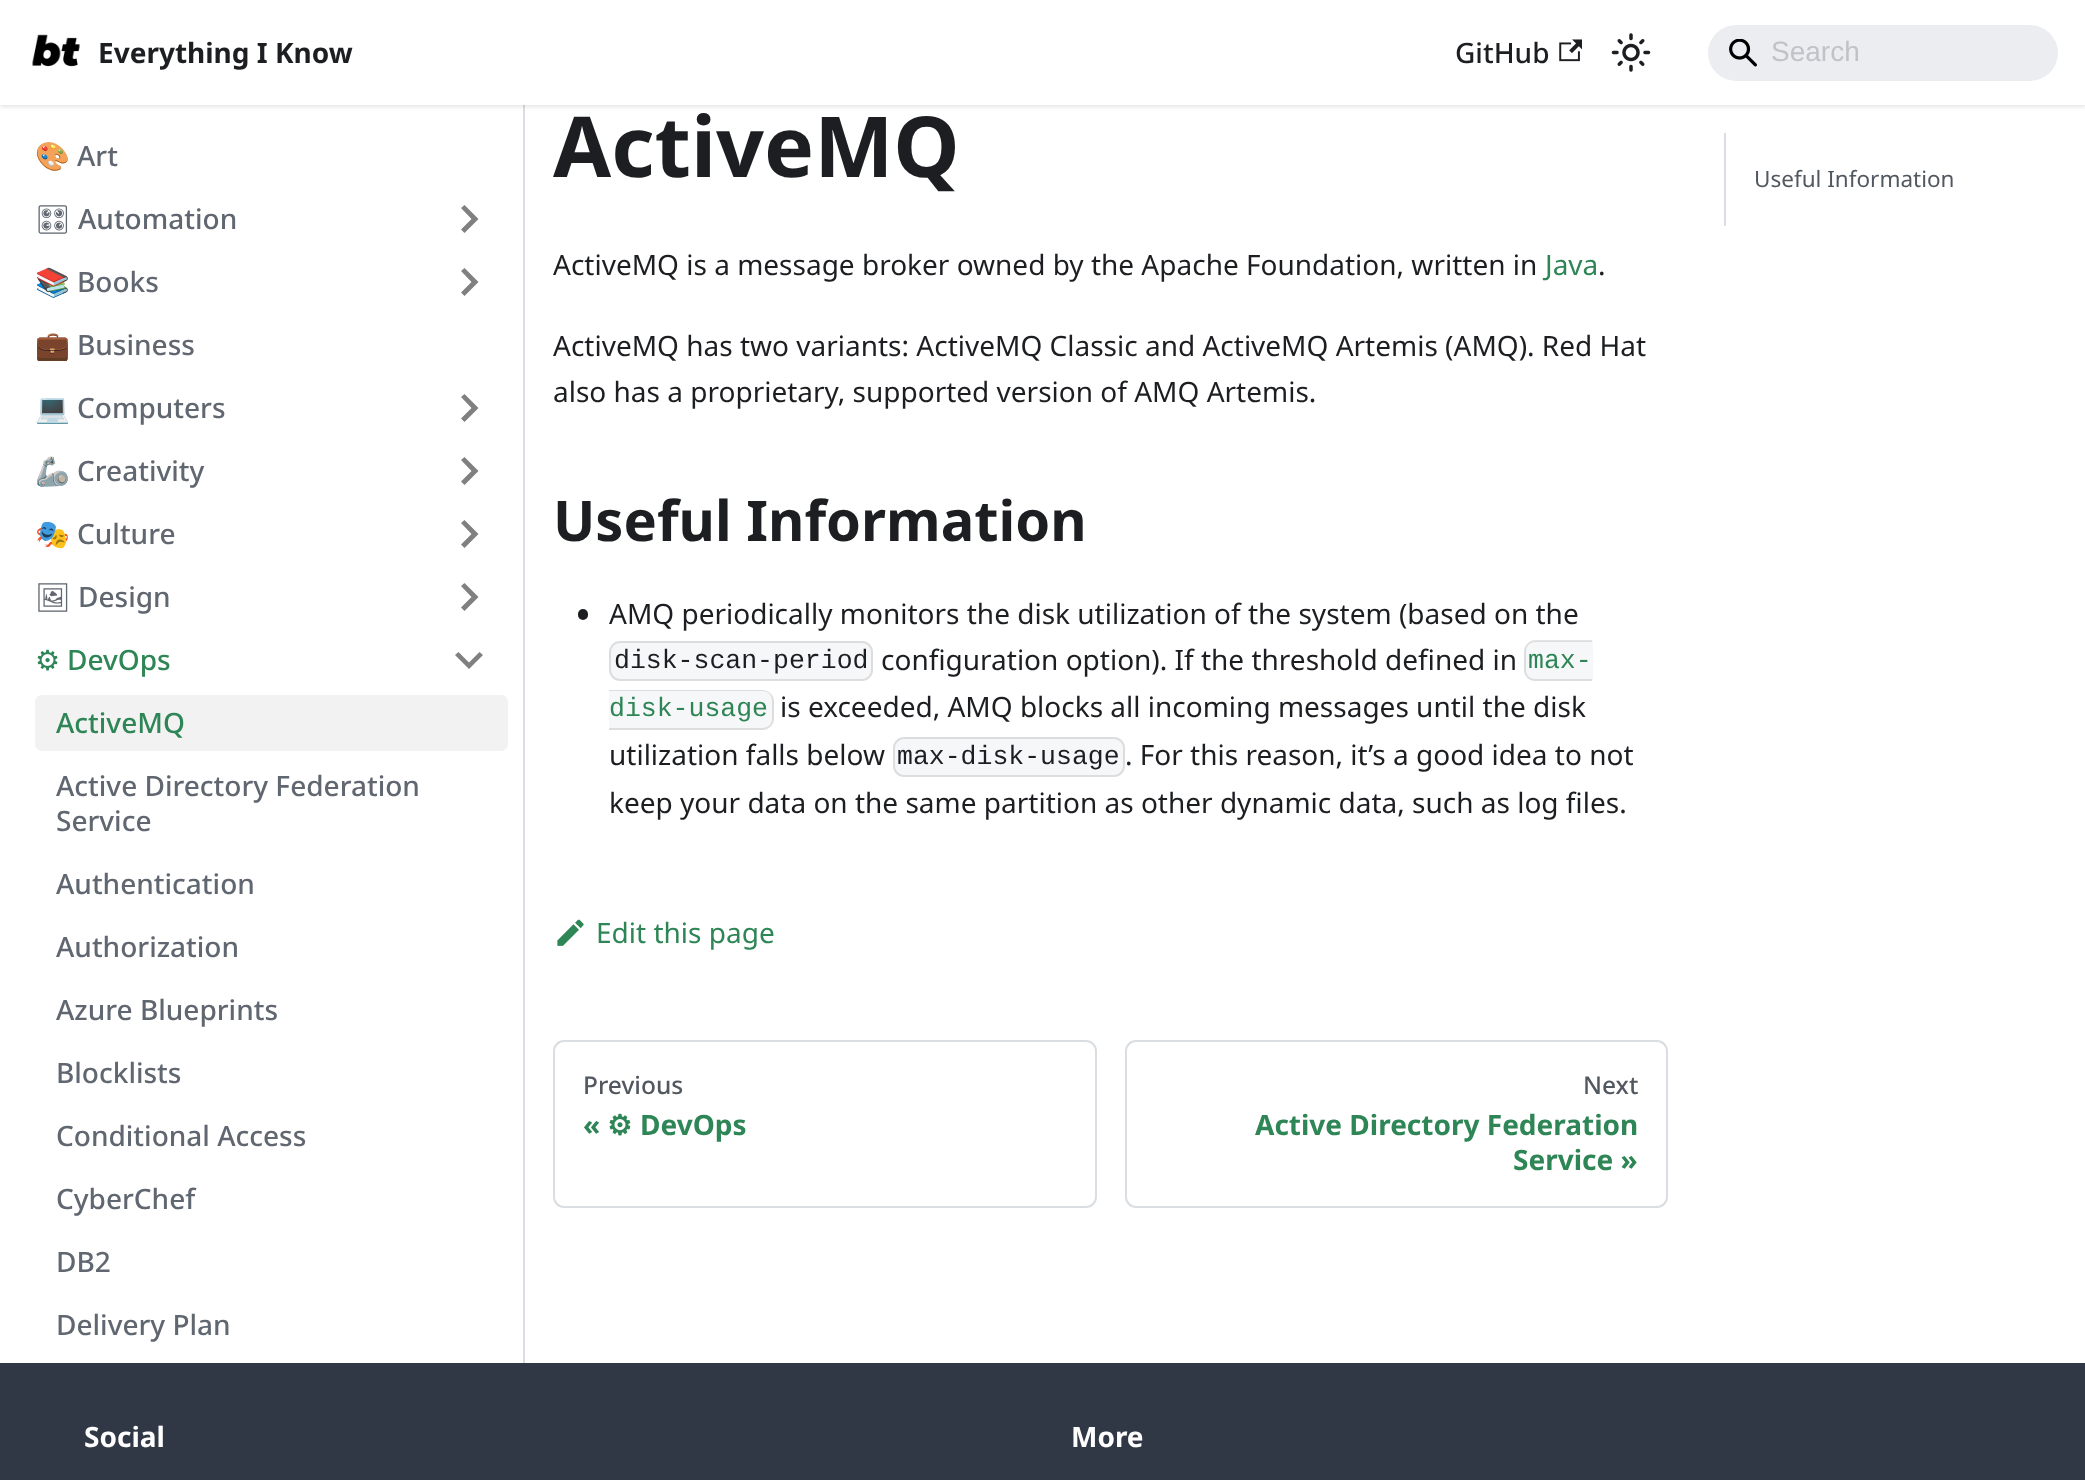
(async () => {
const canvas = document.querySelector("canvas")
canvas.width = 2085
canvas.height = 1480
const c = canvas.getContext("2d")
c.miterLimit = 4
c.fontKerning = "normal"
function T(s,x,y){c.fillText(s,x,y)}
function R(x,y,w,h){c.fillRect(x,y,w,h)}
function Q(x,y,w,h,r){c.beginPath();c.roundRect(x,y,w,h,r);c.fill()}
async function I(src,x,y,w,h){const img=new Image();img.src=src;await img.decode();c.drawImage(img,x,y,w,h)}
let path
c.fillStyle="#fff"
R(0,0,2085,1480)
c.fillStyle="#dadde1"
R(523,105,2,1258)
c.fillStyle="#0000001a"
c.filter="blur(2px)"
c.beginPath()
c.rect(0,2,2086,105)
c.fill()
c.filter="none"
c.fillStyle="#fff"
R(0,0,2085,105)
await I("1.png",32,34,48,33)
c.font="bold 28px Noto Sans"
c.fillStyle="#1c1e21"
T("Everything I Know",98,63)
c.font="500 28px Noto Sans"
T("GitHub",1455,63)
await I("2.png",1559,39,23,23)
await I("3.png",1611,33,40,39)
c.fillStyle="#ebedf0"
Q(1708,25,350,56,28)
await I("4.png",1729,39,28,28)
c.font="28px Liberation Sans"
c.fillStyle="#bec3c9"
T("Search",1771,61)
c.font="28px Noto Color Emoji"
c.fillStyle="#606770"
T("🎨",35,166)
c.font="500 28px Noto Sans"
T("Art",77,166)
c.font="500 28px Noto Emoji"
T("🎛",35,229)
c.font="500 28px Noto Sans"
T("Automation",78,229)
c.fillStyle="#808080"
path = new Path2D("M461 208l10.5 11l-10.5 10.5l3.5 3.5l14-14l-14-14z")
c.fill(path)
c.font="28px Noto Color Emoji"
c.fillStyle="#606770"
T("📚",35,292)
c.font="500 28px Noto Sans"
T("Books",77,292)
c.fillStyle="#808080"
path = new Path2D("M461 271l10.5 11l-10.5 10.5l3.5 3.5l14-14l-14-14z")
c.fill(path)
c.font="28px Noto Color Emoji"
c.fillStyle="#606770"
T("💼",35,355)
c.font="500 28px Noto Sans"
T("Business",77,355)
c.font="28px Noto Color Emoji"
T("💻",35,418)
c.font="500 28px Noto Sans"
T("Computers",77,418)
c.fillStyle="#808080"
path = new Path2D("M461 397l10.5 11l-10.5 10.5l3.5 3.5l14-14l-14-14z")
c.fill(path)
c.font="28px Noto Color Emoji"
c.fillStyle="#606770"
T("🦾",35,481)
c.font="500 28px Noto Sans"
T("Creativity",77,481)
c.fillStyle="#808080"
path = new Path2D("M461 460l10.5 11l-10.5 10.5l3.5 3.5l14-14l-14-14z")
c.fill(path)
c.font="28px Noto Color Emoji"
c.fillStyle="#606770"
T("🎭",35,544)
c.font="500 28px Noto Sans"
T("Culture",77,544)
c.fillStyle="#808080"
path = new Path2D("M461 523l10.5 11l-10.5 10.5l3.5 3.5l14-14l-14-14z")
c.fill(path)
c.font="500 28px Noto Emoji"
c.fillStyle="#606770"
T("🖼",35,607)
c.font="500 28px Noto Sans"
T("Design",78,607)
c.fillStyle="#808080"
path = new Path2D("M461 586l10.5 11l-10.5 10.5l3.5 3.5l14-14l-14-14z")
c.fill(path)
c.font="28px DejaVu Sans"
c.fillStyle="#2e8555"
T("⚙",35,670)
c.font="500 28px Noto Sans"
T("DevOps",67,670)
c.fillStyle="#808080"
path = new Path2D("M479.5 652l-10.5 10.5l-10.5-10.5l-3.5 3l14 14l14-14z")
c.fill(path)
c.fillStyle="#f2f2f2"
Q(35,695,473,56,7)
c.fillStyle="#2e8555"
T("ActiveMQ",56,733)
c.fillStyle="#606770"
T("Active Directory Federation",56,796)
T("Service",56,831)
T("Authentication",56,894)
T("Authorization",56,957)
T("Azure Blueprints",56,1020)
T("Blocklists",56,1083)
T("Conditional Access",56,1146)
T("CyberChef",56,1209)
T("DB2",56,1272)
T("Delivery Plan",56,1335)
c.font="bold 84px Noto Sans"
c.fillStyle="#1c1e21"
T("ActiveMQ",553,177)
c.font="28px Noto Sans"
T("ActiveMQ is a message broker owned by the Apache Foundation, written in",553,275)
c.fillStyle="#2e8555"
T("Java",1545,275)
c.fillStyle="#1c1e21"
T(".",1598,275)
T("ActiveMQ has two variants: ActiveMQ Classic and ActiveMQ Artemis (AMQ). Red Hat",553,356)
T("also has a proprietary, supported version of AMQ Artemis.",553,402)
c.font="bold 56px Noto Sans"
T("Useful Information",553,541)
Q(578,609,10,11,5)
c.font="28px Noto Sans"
T("AMQ periodically monitors the disk utilization of the system (based on the",609,624)
c.fillStyle="#f6f7f8"
Q(609,641,264,40,11)
c.beginPath()
c.roundRect(610,642,262,38,10)
c.strokeStyle="#0000001a"
c.lineWidth=2
c.stroke()
c.font="26.5px Liberation Mono"
c.fillStyle="#1c1e21"
T("disk-scan-period",614,668)
c.font="28px Noto Sans"
T("configuration option). If the threshold defined in",881,670)
c.fillStyle="#f6f7f8"
c.beginPath()
c.roundRect(1524,641,69,40,[11,0,0,11])
c.fill()
c.fillStyle="#0000001a"
path = new Path2D("M1535 640h57v41h-57c-6 0-11-5-11-11v-18c0-6 5-12 11-12zm0 2h57v37h-57c-5 0-9-4-9-9v-18c0-6 4-10 9-10z")
c.fill(path,"evenodd")
c.font="26.5px Liberation Mono"
c.fillStyle="#2e8555"
T("max-",1528,668)
c.fillStyle="#f6f7f8"
c.beginPath()
c.roundRect(609,690,165,40,[0,11,11,0])
c.fill()
c.fillStyle="#0000001a"
path = new Path2D("M609 690h153c6 0 12 5 12 11v18c0 6-6 11-12 11h-153zm0 1h153c6 0 10 4 10 10v18c0 5-4 9-10 9h-153z")
c.fill(path,"evenodd")
c.fillStyle="#2e8555"
T("disk-usage",609,716)
c.font="28px Noto Sans"
c.fillStyle="#1c1e21"
T("is exceeded, AMQ blocks all incoming messages until the disk",780,717)
T("utilization falls below",609,765)
c.fillStyle="#f6f7f8"
Q(893,737,232,40,11)
c.beginPath()
c.roundRect(894,738,230,38,10)
c.stroke()
c.font="26.5px Liberation Mono"
c.fillStyle="#1c1e21"
T("max-disk-usage",897,764)
c.font="28px Noto Sans"
T(". For this reason, it’s a good idea to not",1125,765)
T("keep your data on the same partition as other dynamic data, such as log files.",609,813)
await I("5.png",557,919,27,27)
c.fillStyle="#2e8555"
T("Edit this page",596,943)
c.beginPath()
c.roundRect(554,1041,542,166,10)
c.strokeStyle="#dadde1"
c.stroke()
c.font="500 24.5px Noto Sans"
c.fillStyle="#525860"
T("Previous",583,1094)
c.font="bold 28px Noto Sans"
c.fillStyle="#2e8555"
T("«",583,1135)
c.font="bold 28px DejaVu Sans"
T("⚙",607,1135)
c.font="bold 28px Noto Sans"
T("DevOps",640,1135)
c.beginPath()
c.roundRect(1126,1041,541,166,10)
c.stroke()
c.font="500 24.5px Noto Sans"
c.fillStyle="#525860"
T("Next",1583,1094)
c.font="bold 28px Noto Sans"
c.fillStyle="#2e8555"
T("Active Directory Federation",1255,1135)
T("Service »",1513,1170)
c.fillStyle="#dadde1"
R(1724,133,2,93)
c.font="22.5px Noto Sans"
c.fillStyle="#525860"
T("Useful Information",1754,187)
c.fillStyle="#303846"
R(0,1363,2085,117)
c.font="bold 28px Noto Sans"
c.fillStyle="#fff"
T("Social",84,1447)
T("More",1071,1447)
})()
